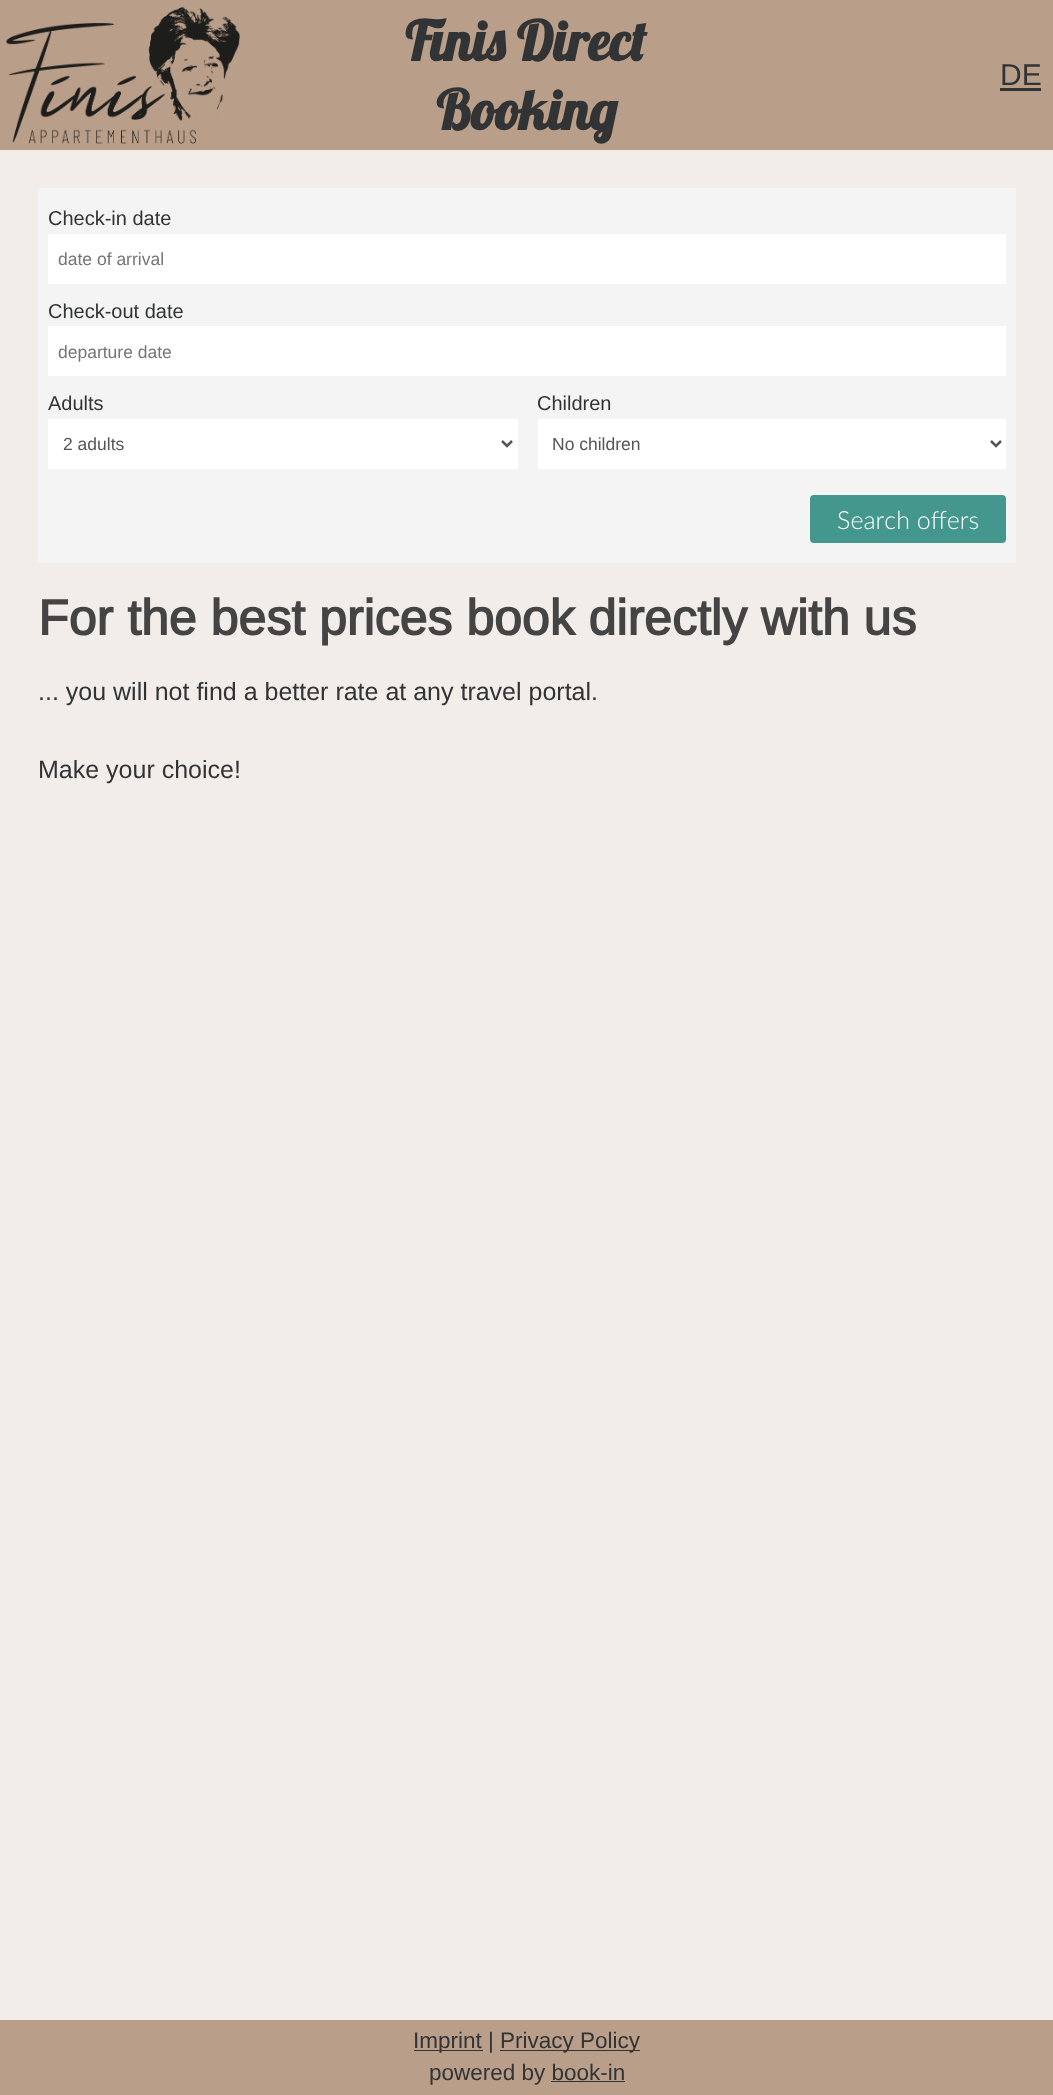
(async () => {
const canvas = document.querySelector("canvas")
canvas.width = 1053
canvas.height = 2095
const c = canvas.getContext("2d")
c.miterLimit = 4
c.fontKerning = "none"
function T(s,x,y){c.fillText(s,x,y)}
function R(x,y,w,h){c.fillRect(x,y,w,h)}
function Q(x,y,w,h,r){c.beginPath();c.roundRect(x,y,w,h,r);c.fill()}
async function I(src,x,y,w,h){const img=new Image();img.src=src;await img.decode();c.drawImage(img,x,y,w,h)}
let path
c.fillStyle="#f2ede9"
R(0,0,1053,2095)
c.fillStyle="#b99e89"
R(0,0,1053,150)
await I("1.png",6,7,234,137)
c.font="bold 55px Lobster"
c.fillStyle="#323335"
T("Finis Direct",405,61)
T("Booking",436,130)
c.font="30px Arimo"
T("DE",1000,85)
R(1000,88,41,3)
c.fillStyle="#f3f4f3"
R(38,188,978,375)
c.font="20px Arimo"
c.fillStyle="#323335"
T("Check-in date",48,225)
c.fillStyle="#fff"
R(48,234,958,50)
c.font="17.5px Liberation Sans"
c.fillStyle="#757575"
T("date of arrival",58,265)
c.font="20px Arimo"
c.fillStyle="#323335"
T("Check-out date",48,318)
c.fillStyle="#fff"
R(48,326,958,50)
c.font="17.5px Liberation Sans"
c.fillStyle="#757575"
T("departure date",58,358)
c.font="20px Arimo"
c.fillStyle="#323335"
T("Adults",48,410)
c.fillStyle="#fff"
R(48,419,470,50)
path = new Path2D("M502 441l5 5l5-5")
c.strokeStyle="#555"
c.lineWidth=2.5
c.stroke(path)
c.font="17.5px Liberation Sans"
c.fillStyle="#555"
T("2 adults",63,450)
c.font="20px Arimo"
c.fillStyle="#323335"
T("Children",537,410)
c.fillStyle="#fff"
R(538,419,468,50)
path = new Path2D("M991 441l5 5l5-5")
c.stroke(path)
c.font="17.5px Liberation Sans"
c.fillStyle="#555"
T("No children",552,450)
c.fillStyle="#43978d"
Q(810,495,196,48,4)
c.font="300 25px Lato"
c.fillStyle="#fff"
T("Search offers",837,529)
c.font="bold 50px Arimo"
c.fillStyle="#444"
T("For the best prices book directly with us",38,635)
c.font="25px Arimo"
c.fillStyle="#323335"
T("... you will not find a better rate at any travel portal.",38,700)
T("Make your choice!",38,778)
c.fillStyle="#b99e89"
R(0,2020,1053,75)
c.fillStyle="#323335"
R(414,2050,69,1)
c.font="22.5px Arimo"
T("Imprint |",413,2048)
R(500,2050,140,1)
T("Privacy Policy",500,2048)
T("powered by book-in",429,2080)
R(551,2081,74,1)
})()
